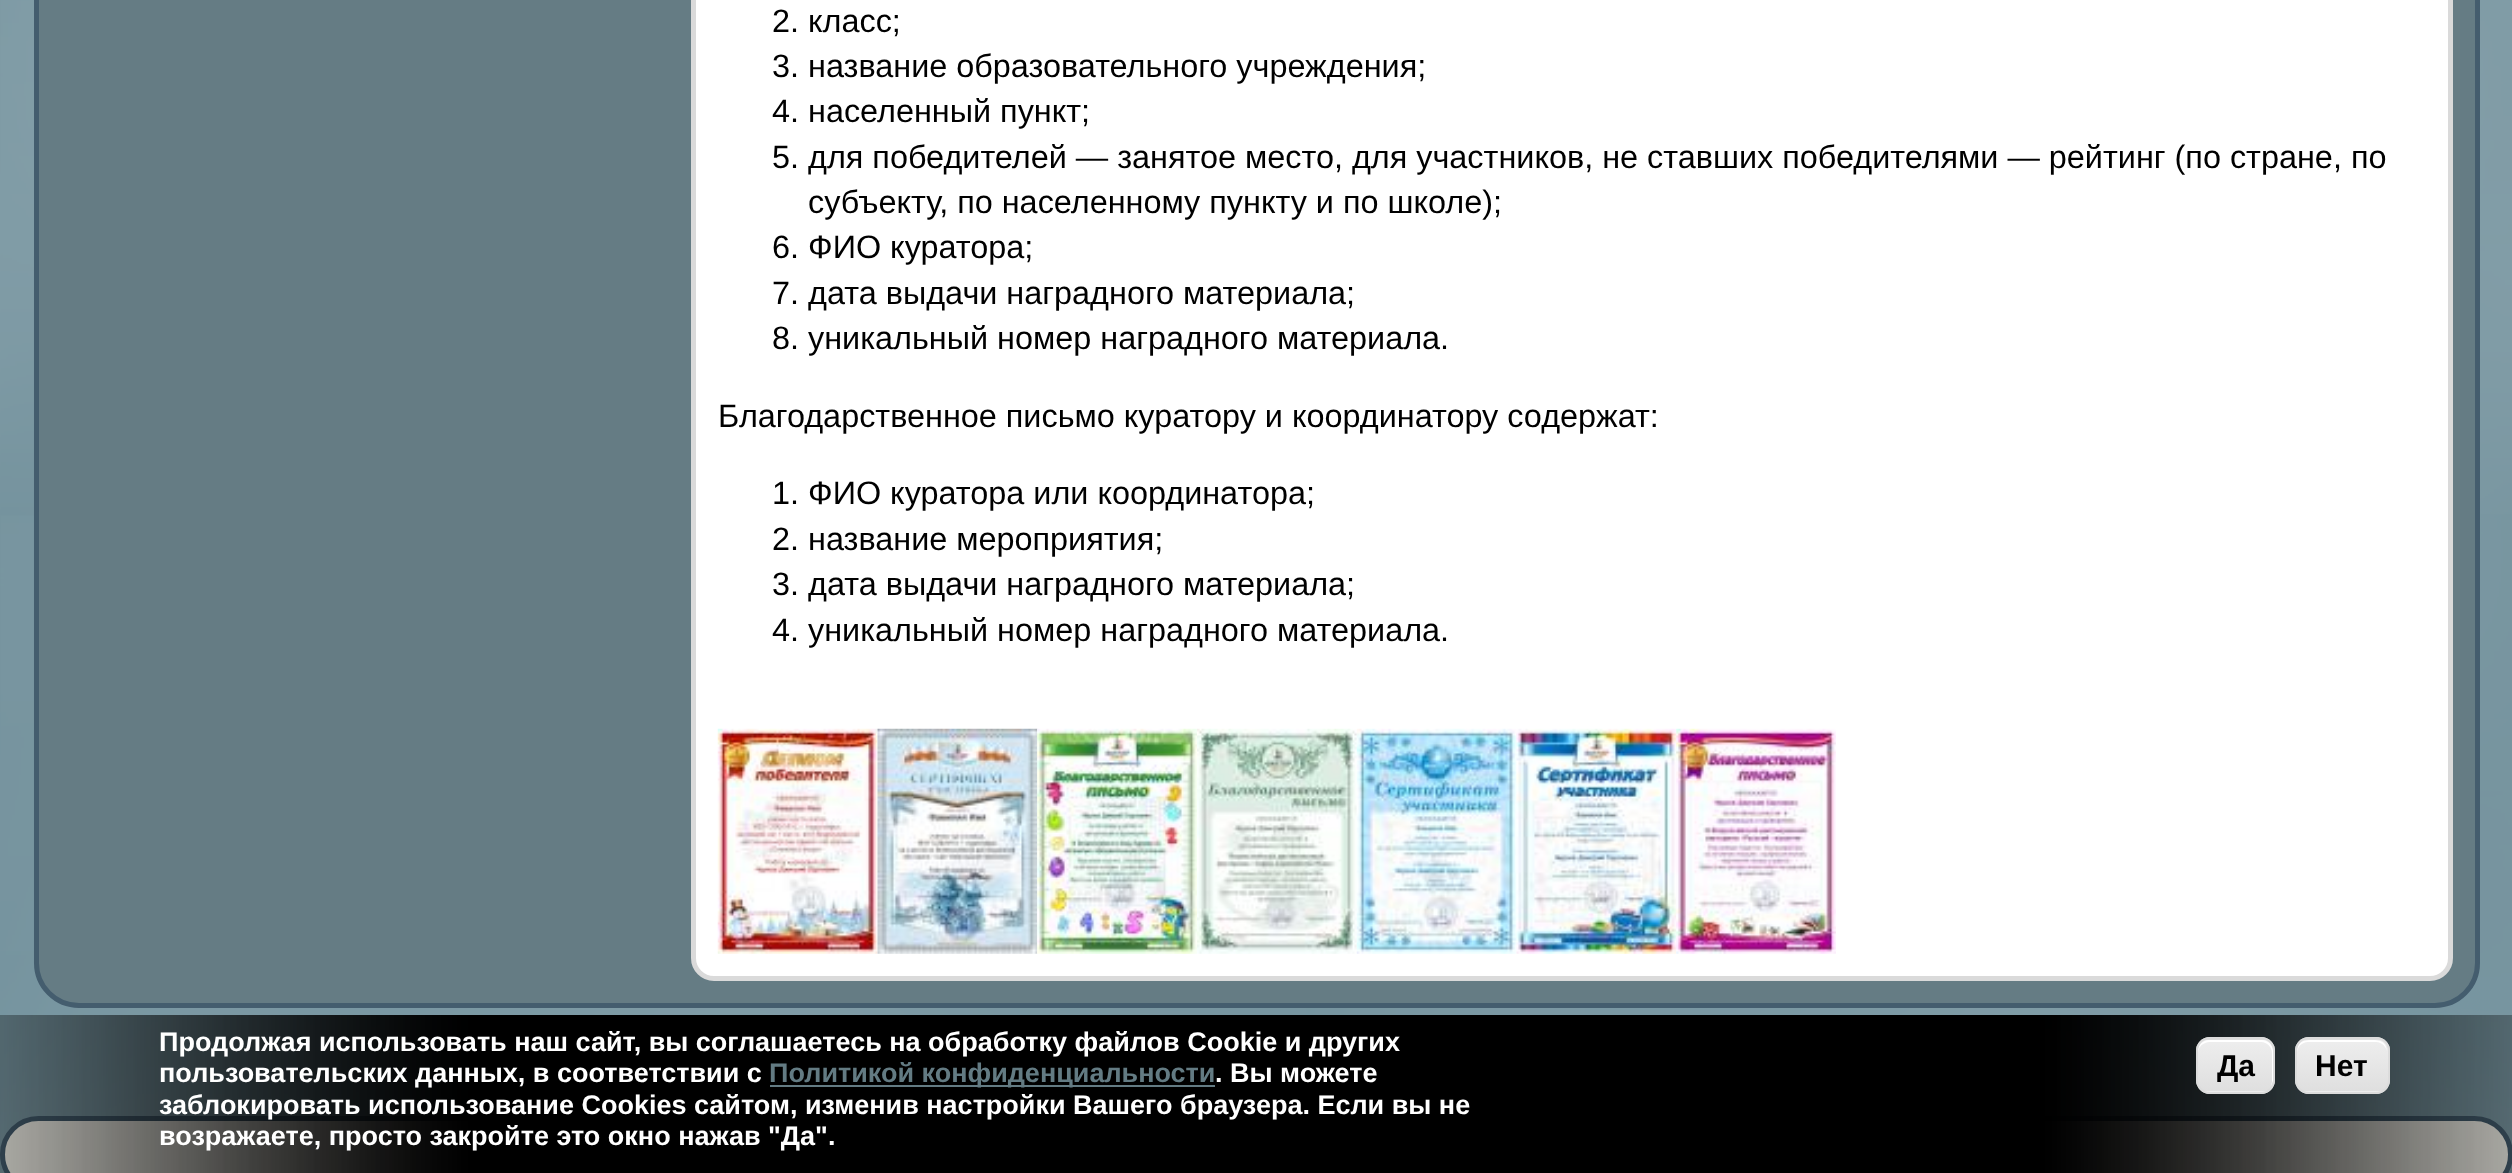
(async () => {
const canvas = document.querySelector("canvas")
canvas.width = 2512
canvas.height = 1173
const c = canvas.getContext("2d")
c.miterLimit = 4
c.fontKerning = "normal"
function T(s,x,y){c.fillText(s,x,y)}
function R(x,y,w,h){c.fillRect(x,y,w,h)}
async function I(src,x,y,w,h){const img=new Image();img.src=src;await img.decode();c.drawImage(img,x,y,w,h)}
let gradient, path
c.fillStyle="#fff"
R(0,0,2512,1173)
await I("1.png",0,0,2512,1173)
c.fillStyle="#657c84"
c.beginPath()
c.roundRect(36.5,-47.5,2441,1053,42.5)
c.fill()
c.strokeStyle="#445d6e"
c.lineWidth=5
c.stroke()
c.fillStyle="#fff"
c.beginPath()
c.roundRect(693.5,-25.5,1757,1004,20.5)
c.fill()
c.strokeStyle="#dadada"
c.stroke()
c.font="32.4px Liberation Sans"
c.fillStyle="#000"
T("2. класс;",772,32)
T("3. название образовательного учреждения;",772,77)
T("4. населенный пункт;",772,122)
T("5. для победителей — занятое место, для участников, не ставших победителями — рейтинг (по стране, по",772,168)
T("субъекту, по населенному пункту и по школе);",808,213)
T("6. ФИО куратора;",772,258)
T("7. дата выдачи наградного материала;",772,304)
T("8. уникальный номер наградного материала.",772,349)
T("Благодарственное письмо куратору и координатору содержат:",718,427)
T("1. ФИО куратора или координатора;",772,504)
T("2. название мероприятия;",772,550)
T("3. дата выдачи наградного материала;",772,595)
T("4. уникальный номер наградного материала.",772,641)
await I("2.png",717,728,161,226)
await I("3.png",877,728,161,226)
await I("4.png",1037,728,160,226)
await I("5.png",1197,728,160,226)
await I("6.png",1356,728,161,226)
await I("7.png",1516,728,161,226)
await I("8.png",1676,728,160,226)
c.fillStyle="#f4f3eb"
c.beginPath()
c.roundRect(2.5,1118.5,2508,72,36)
c.fill()
c.strokeStyle="#445d6e"
c.stroke()
await I("9.png",0,1015,2512,158)
c.font="bold 27px Liberation Sans"
c.fillStyle="#fff"
T("Продолжая использовать наш сайт, вы соглашаетесь на обработку файлов Сookie и других",159,1051)
T("пользовательских данных, в соответствии с",159,1082)
c.fillStyle="#637b83"
R(770,1085,445,2)
T("Политикой конфиденциальности",769,1082)
c.fillStyle="#fff"
T(". Вы можете",1215,1082)
T("заблокировать использование Cookies сайтом, изменив настройки Вашего браузера. Если вы не",159,1114)
T("возражаете, просто закройте это окно нажав \"Да\".",159,1145)
c.save()
c.beginPath()
c.roundRect(2196,1037,79,57,14)
c.clip()
gradient = c.createLinearGradient(2198,988,2198,1040)
gradient.addColorStop(.05,"#ededed")
gradient.addColorStop(1,"#dfdfdf")
c.fillStyle = gradient
R(2196,1037,79,3)
gradient = c.createLinearGradient(2198,1040,2198,1091)
gradient.addColorStop(.05,"#ededed")
gradient.addColorStop(1,"#dfdfdf")
c.fillStyle = gradient
R(2196,1040,79,51)
gradient = c.createLinearGradient(2198,1091,2198,1143)
gradient.addColorStop(.05,"#ededed")
gradient.addColorStop(1,"#dfdfdf")
c.fillStyle = gradient
R(2196,1091,79,3)
c.restore()
path = new Path2D("M2210 1042h51c6 0 11 5 11 11v29l-1 4c1-2 2-4 2-6v-29c0-6-5-11-11-11h-53c-6 0-11 5-11 11v2c0-6 5-11 12-11z")
c.fill(path)
c.beginPath()
c.roundRect(2197,1038,77,55,13)
c.strokeStyle="#dcdcdc"
c.lineWidth=2
c.stroke()
c.font="bold 30px Liberation Sans"
c.fillStyle="#000"
T("Да",2217,1076)
c.save()
c.beginPath()
c.roundRect(2295,1037,95,57,14)
c.clip()
gradient = c.createLinearGradient(2297,988,2297,1040)
gradient.addColorStop(.05,"#ededed")
gradient.addColorStop(1,"#dfdfdf")
c.fillStyle = gradient
R(2295,1037,95,3)
gradient = c.createLinearGradient(2297,1040,2297,1091)
gradient.addColorStop(.05,"#ededed")
gradient.addColorStop(1,"#dfdfdf")
c.fillStyle = gradient
R(2295,1040,95,51)
gradient = c.createLinearGradient(2297,1091,2297,1143)
gradient.addColorStop(.05,"#ededed")
gradient.addColorStop(1,"#dfdfdf")
c.fillStyle = gradient
R(2295,1091,95,3)
c.restore()
c.fillStyle="#fff"
path = new Path2D("M2308 1042h68c6 0 11 5 11 11c0-15-11-13-22-13h-46c-11 0-22-2-22 13c0-6 5-11 11-11z")
c.fill(path)
c.beginPath()
c.roundRect(2296,1038,93,55,13)
c.stroke()
c.fillStyle="#000"
T("Нет",2315,1076)
})()
